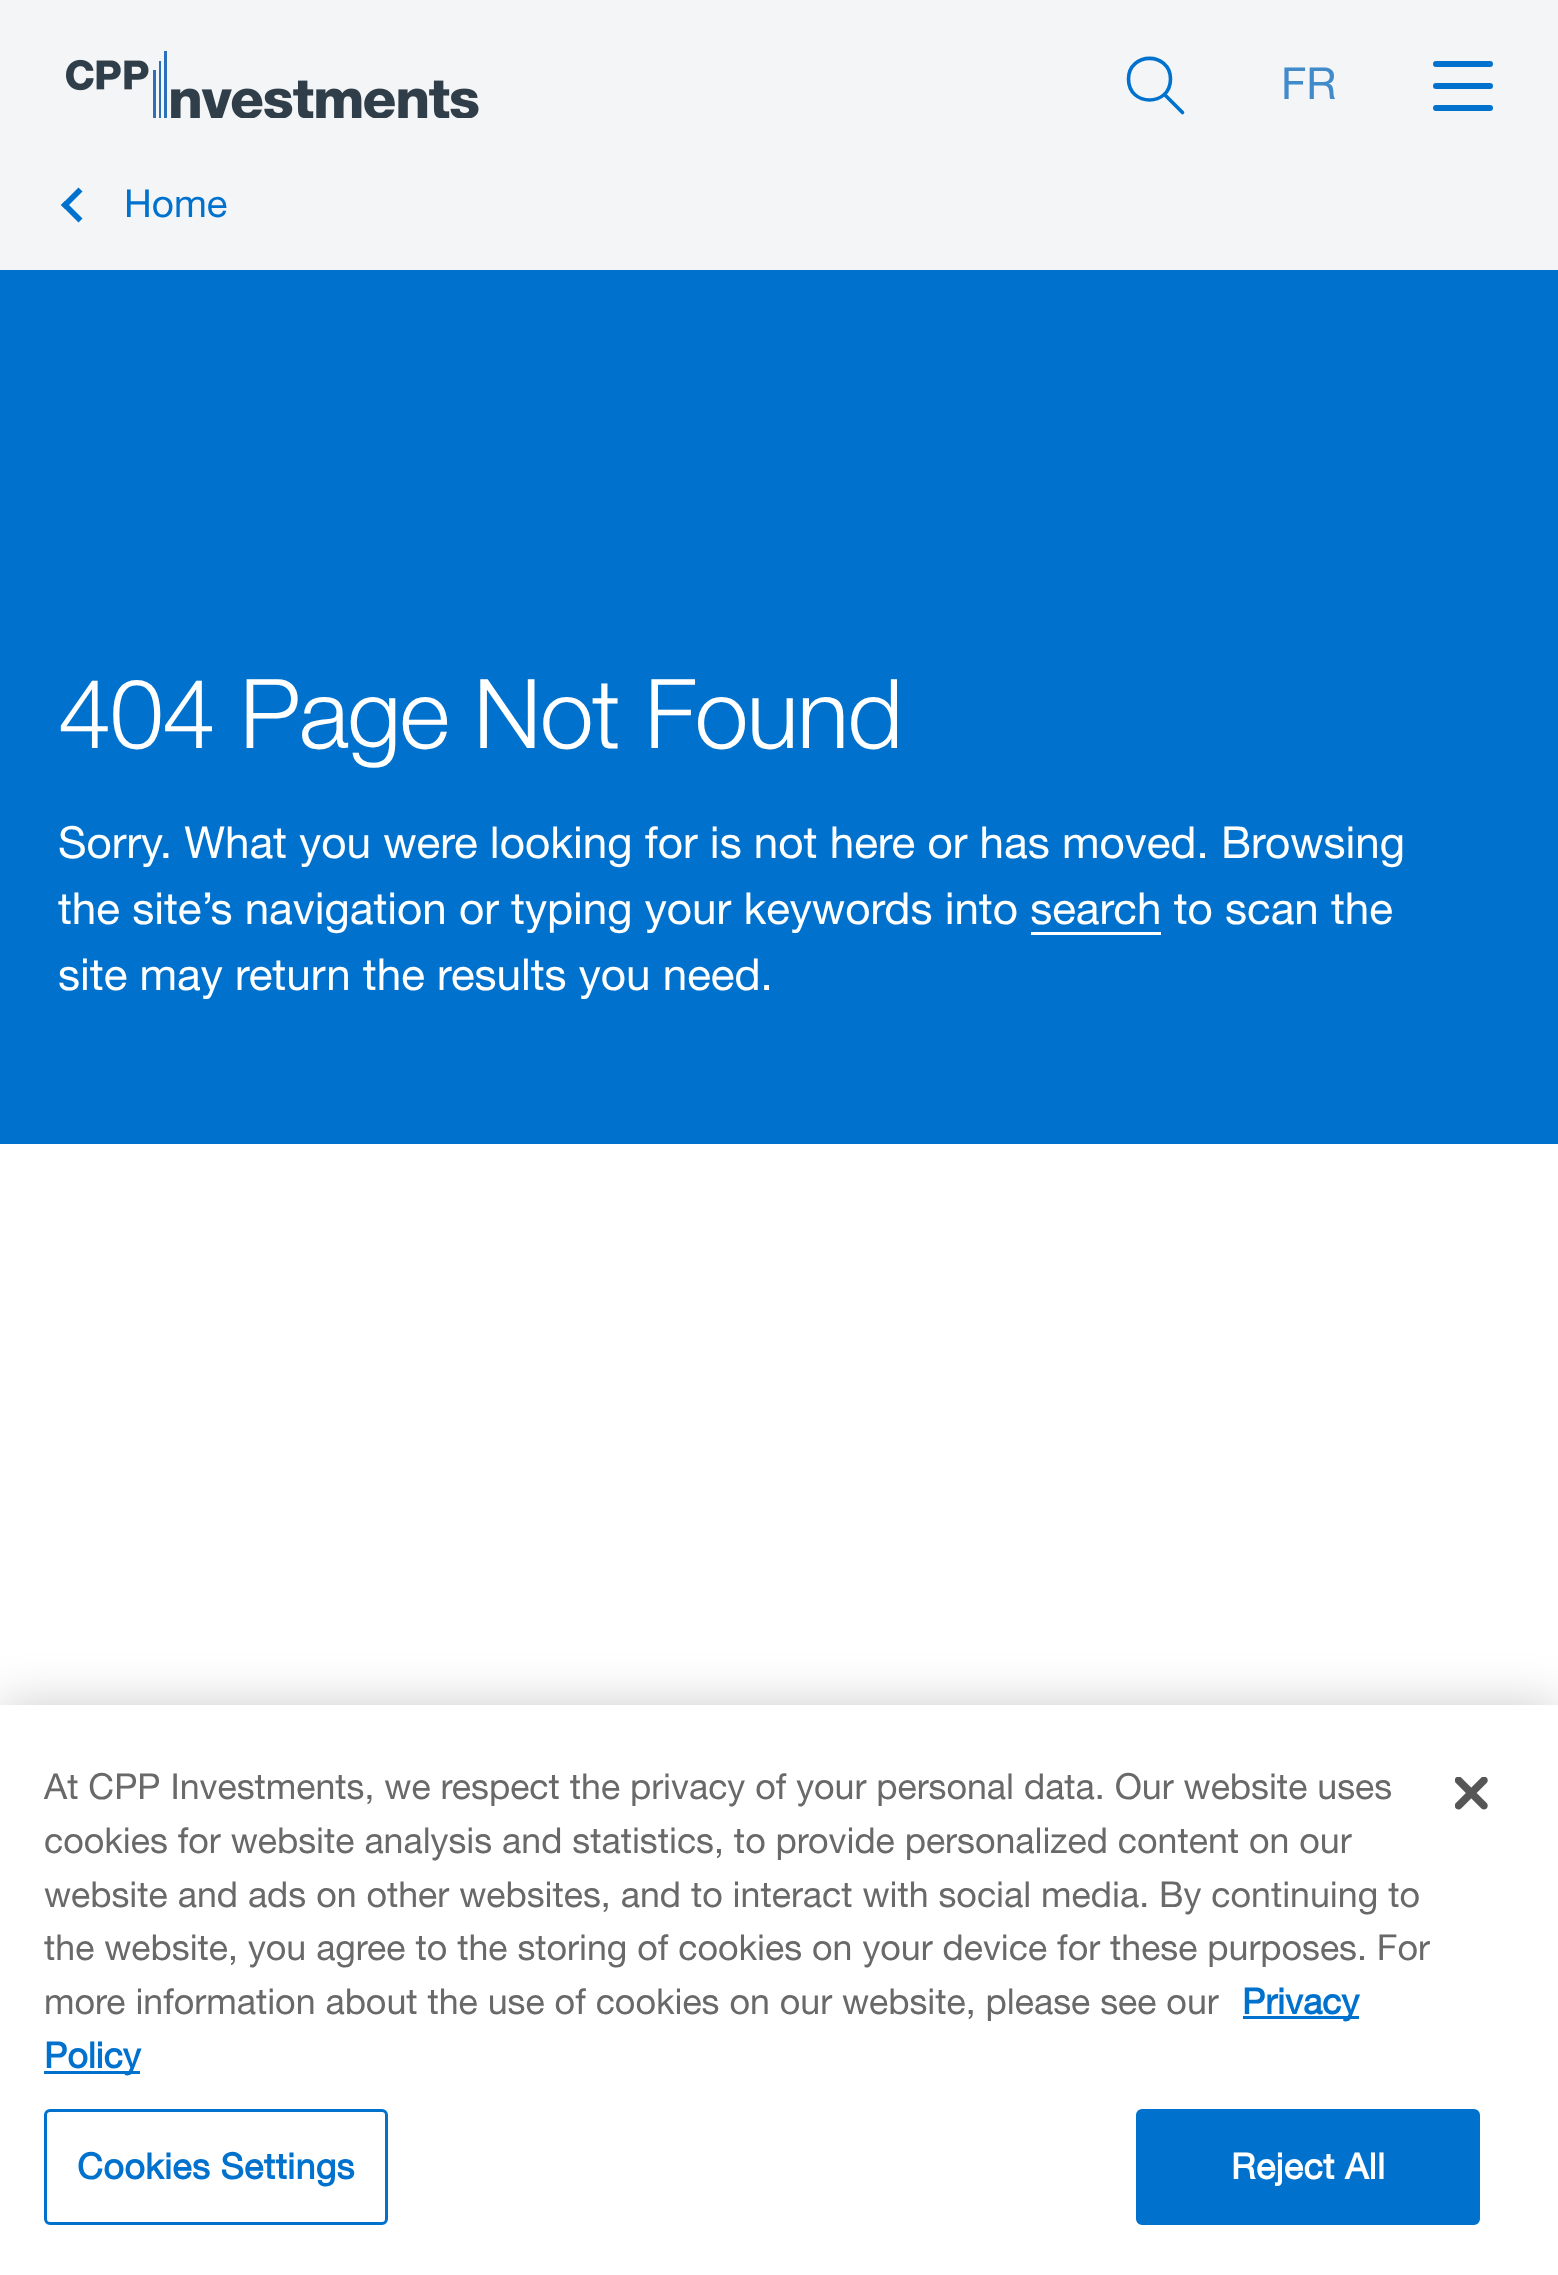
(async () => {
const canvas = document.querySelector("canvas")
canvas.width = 1558
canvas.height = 2275
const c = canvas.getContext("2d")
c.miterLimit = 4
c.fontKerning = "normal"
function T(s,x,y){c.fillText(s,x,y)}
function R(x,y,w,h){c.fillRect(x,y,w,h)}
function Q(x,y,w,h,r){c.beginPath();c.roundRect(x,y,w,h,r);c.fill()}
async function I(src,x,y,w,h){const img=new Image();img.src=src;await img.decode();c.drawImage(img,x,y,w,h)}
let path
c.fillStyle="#fff"
R(0,0,1558,2275)
c.fillStyle="#f3f5f7"
R(0,0,1558,270)
await I("1.png",66,51,413,67)
path = new Path2D("M1182.5 112.5l-18-18m6-15.5c0 28-42 28-42 0c0-27.5 42-27.5 42 0z")
c.strokeStyle="#0072ce"
c.lineWidth=3.6
c.lineCap="round"
c.lineJoin="round"
c.stroke(path)
c.font="44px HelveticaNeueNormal"
c.fillStyle="#428bca"
T("FR",1281,99)
c.fillStyle="#0072ce"
Q(1433,61,60,6,3)
Q(1433,83,60,6,3)
Q(1433,105,60,6,3)
path = new Path2D("M78.5 222.5l-17.5-17.5l4-4l17.5 17.5z")
c.fill(path)
path = new Path2D("M65 209l-4-4l17.5-17.5l4 4z")
c.fill(path)
c.font="38.5px HelveticaNeueNormal"
T("Home",124,217)
R(0,270,1558,874)
c.letterSpacing="-1.4px"
c.font="300 96.25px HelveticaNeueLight"
c.fillStyle="#fff"
T("404 Page Not Found",58,748)
c.letterSpacing="0px"
c.font="44px HelveticaNeueNormal"
T("Sorry. What you were looking for is not here or has moved. Browsing",58,858)
T("the site’s navigation or typing your keywords into search to scan the",58,924)
R(1031,932,130,3)
T("site may return the results you need.",58,990)
c.fillStyle="#00000033"
c.filter="blur(25px)"
c.beginPath()
c.rect(0,1705,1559,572)
c.fill()
c.filter="none"
c.fillStyle="#fff"
R(0,1705,1558,570)
c.font="35.75px HelveticaNeueNormal"
c.fillStyle="#696969"
T("At CPP Investments, we respect the privacy of your personal data. Our website uses",44,1799)
T("cookies for website analysis and statistics, to provide personalized content on our",44,1853)
T("website and ads on other websites, and to interact with social media. By continuing to",44,1907)
T("the website, you agree to the storing of cookies on your device for these purposes. For",44,1960)
T("more information about the use of cookies on our website, please see our",44,2014)
c.fillStyle="#0072ce"
R(1243,2016,116,3)
c.font="bold 35.75px HelveticaNeueNormal"
T("Privacy",1242,2014)
R(44,2071,96,3)
T("Policy",44,2068)
c.beginPath()
c.roundRect(45.5,2110.5,341,113,4.5)
c.lineWidth=3
c.lineJoin="miter"
c.stroke()
c.letterSpacing="0.4px"
T("Cookies Settings",77,2179)
c.beginPath()
c.roundRect(1137.5,2110.5,341,113,4.5)
c.fill()
c.stroke()
c.fillStyle="#fff"
T("Reject All",1231,2179)
await I("2.png",1455,1777,33,33)
})()
